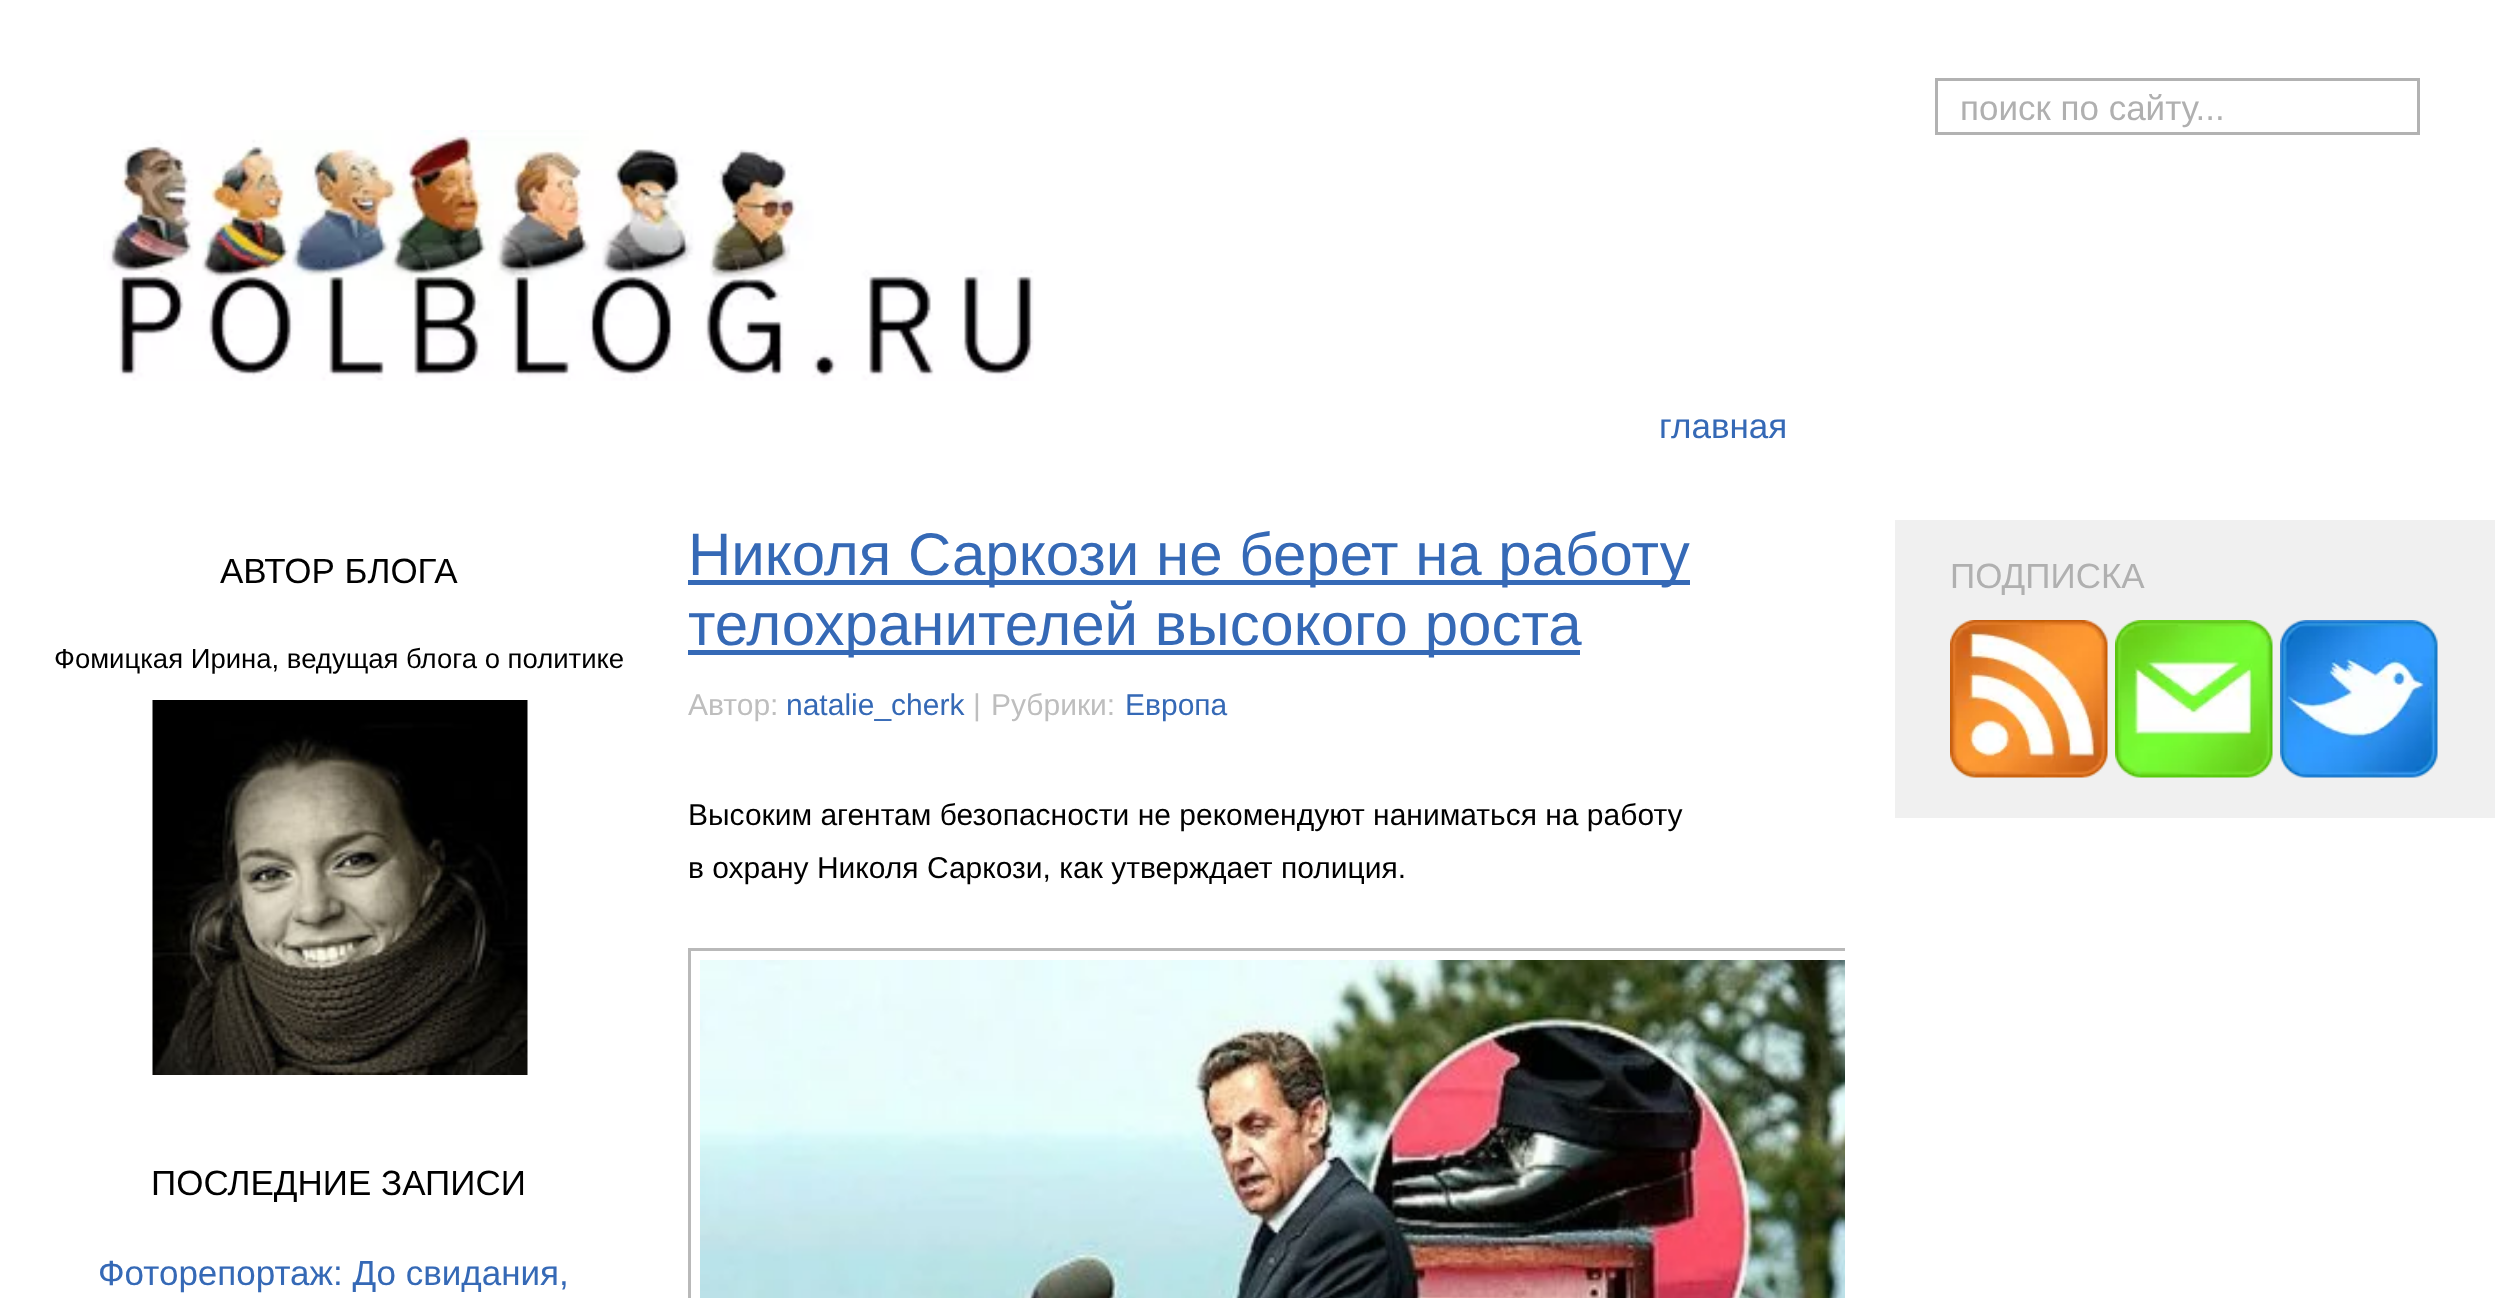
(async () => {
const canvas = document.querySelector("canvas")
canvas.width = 2506
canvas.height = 1298
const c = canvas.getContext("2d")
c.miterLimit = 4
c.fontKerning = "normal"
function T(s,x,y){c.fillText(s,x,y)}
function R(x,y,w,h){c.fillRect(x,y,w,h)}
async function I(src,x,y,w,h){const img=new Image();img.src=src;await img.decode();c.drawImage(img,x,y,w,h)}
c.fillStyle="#fff"
R(0,0,2506,1298)
c.strokeStyle="#b2b2b2"
c.lineWidth=3
c.strokeRect(1936.5,79.5,482,54)
c.font="35px Liberation Sans"
c.fillStyle="#b0b0b0"
T("поиск по сайту...",1960,120)
await I("1.png",103,130,931,251)
c.fillStyle="#3569b6"
T("главная",1659,438)
c.fillStyle="#000"
T("АВТОР БЛОГА",220,583)
c.font="27.5px Liberation Sans"
T("Фомицкая Ирина, ведущая блога о политике",54,668)
await I("2.png",152,700,376,375)
c.font="35px Liberation Sans"
T("ПОСЛЕДНИЕ ЗАПИСИ",151,1195)
c.fillStyle="#3569b6"
T("Фоторепортаж: До свидания,",98,1285)
R(688,580,1002,5)
c.font="60px Liberation Sans"
T("Николя Саркози не берет на работу",688,575)
R(688,650,892,5)
T("телохранителей высокого роста",688,645)
c.font="30px Liberation Sans"
c.fillStyle="#bebebe"
T("Автор:",688,715)
c.fillStyle="#3569b6"
T("natalie_cherk",786,715)
c.fillStyle="#bebebe"
T("|",973,715)
T("Рубрики:",991,715)
c.fillStyle="#3569b6"
T("Европа",1125,715)
c.fillStyle="#000"
T("Высоким агентам безопасности не рекомендуют наниматься на работу",688,825)
T("в охрану Николя Саркози, как утверждает полиция.",688,878)
c.save()
c.beginPath()
c.rect(688,520,1157,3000)
c.clip()
c.strokeStyle="#b9b9b9"
c.strokeRect(689.5,949.5,1179,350)
c.restore()
await I("3.png",700,960,1145,338)
c.fillStyle="#f0f0f0"
R(1895,520,600,298)
c.font="35px Liberation Sans"
c.fillStyle="#b0b0b0"
T("ПОДПИСКА",1950,588)
await I("4.png",1950,620,158,158)
await I("5.png",2115,620,158,158)
await I("6.png",2280,620,158,158)
})()
